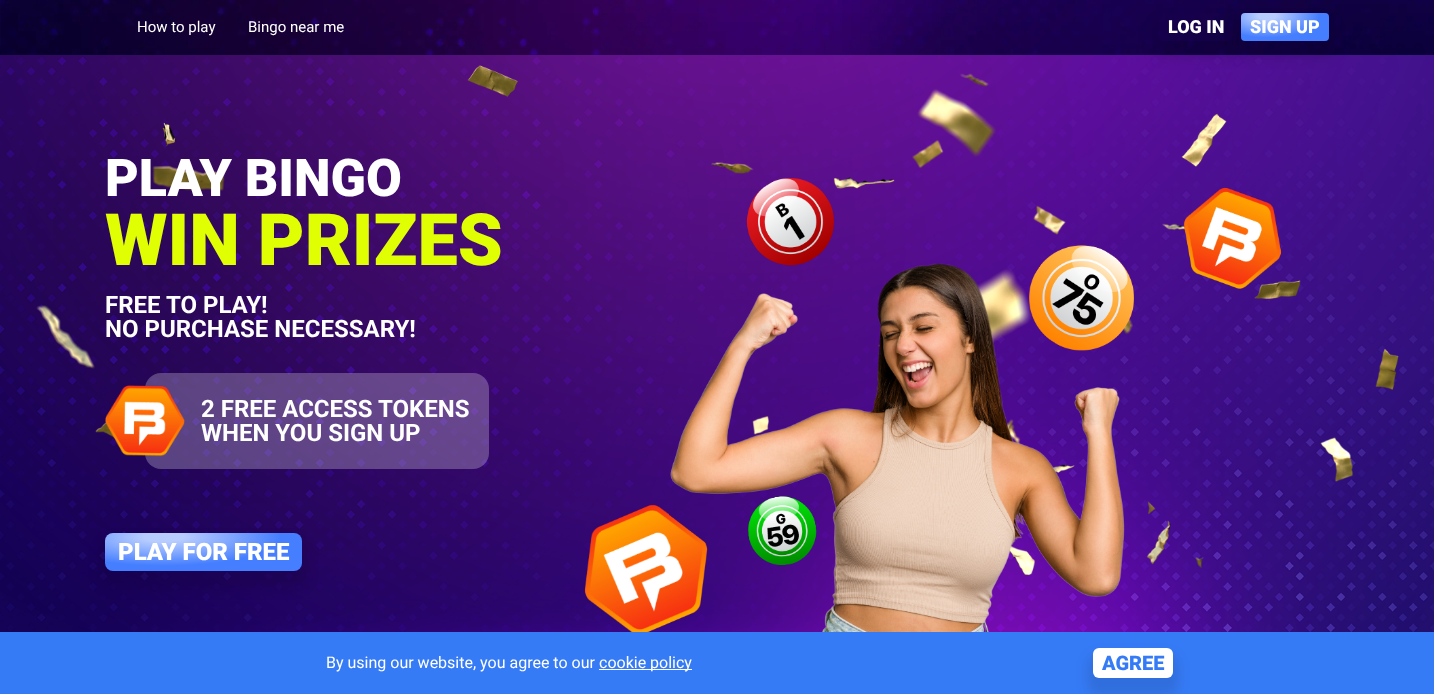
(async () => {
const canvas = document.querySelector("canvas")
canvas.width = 1434
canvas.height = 694
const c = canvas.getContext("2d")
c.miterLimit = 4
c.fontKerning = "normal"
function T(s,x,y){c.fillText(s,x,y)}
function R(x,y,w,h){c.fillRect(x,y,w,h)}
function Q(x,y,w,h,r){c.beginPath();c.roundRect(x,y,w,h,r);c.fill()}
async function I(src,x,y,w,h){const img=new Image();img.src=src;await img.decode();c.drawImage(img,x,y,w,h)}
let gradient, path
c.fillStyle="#fff"
R(0,0,1434,694)
await I("1.png",0,0,1434,55)
await I("1.png",0,0,1434,55)
c.font="15px Roboto"
T("How to play",137,32)
T("Bingo near me",248,32)
await I("2.png",0,55,1434,577)
c.save()
path = new Path2D("M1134 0h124v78h-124zm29 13h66c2 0 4 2 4 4v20c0 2-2 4-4 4h-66c-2 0-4-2-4-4v-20c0-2 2-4 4-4z")
c.clip(path,"evenodd")
c.fillStyle="#0000001a"
c.filter="blur(6px)"
c.beginPath()
c.roundRect(1153,19,86,40,10)
c.fill()
c.filter="none"
c.restore()
c.font="900 18px Roboto"
T("LOG IN",1168,33)
c.fillStyle="#0000001a"
c.filter="blur(6px)"
c.beginPath()
c.roundRect(1235,19,100,40,10)
c.fill()
c.filter="none"
gradient = c.createRadialGradient(1267,38.67,0,1267,38.67,87)
gradient.addColorStop(.1,"#b8cdff")
gradient.addColorStop(.6,"#457eff")
c.fillStyle = gradient
c.beginPath()
c.roundRect(1241,13,88,28,4)
c.save()
c.clip()
c.scale(1,36 / 87)
c.fillRect(0,0,1434,1678)
c.restore()
c.fillStyle="#fff"
T("SIGN UP",1250,33)
c.font="900 52px Roboto"
T("PLAY BINGO",105,196)
c.font="900 72px Roboto"
c.fillStyle="#e0ff02"
T("WIN PRIZES",105,265)
c.font="bold 24px Roboto"
c.fillStyle="#fff"
T("FREE TO PLAY!",105,313)
T("NO PURCHASE NECESSARY!",105,337)
c.fillStyle="#ffffff40"
Q(145,373,344,96,16)
await I("3.png",105,385,80,72)
c.fillStyle="#fff"
T("2 FREE ACCESS TOKENS",201,417)
T("WHEN YOU SIGN UP",201,441)
c.fillStyle="#0000001a"
c.filter="blur(6px)"
c.beginPath()
c.roundRect(99,539,209,50,14)
c.fill()
c.filter="none"
gradient = c.createRadialGradient(164,2181.56,0,164,2181.56,195)
gradient.addColorStop(.1,"#b8cdff")
gradient.addColorStop(.6,"#457eff")
c.fillStyle = gradient
c.beginPath()
c.roundRect(105,533,197,38,8)
c.save()
c.clip()
c.scale(1,48 / 195)
c.fillRect(0,0,1434,2820)
c.restore()
c.font="900 24px Roboto"
c.fillStyle="#fff"
T("PLAY FOR FREE",118,560)
await I("4.png",584,178,698,454)
c.fillStyle="#367bf6"
R(0,632,1434,62)
c.font="16px Roboto"
c.fillStyle="#fff"
T("By using our website, you agree to our",326,668)
R(599,669,93,1)
T("cookie policy",599,668)
c.fillStyle="#0000001a"
c.filter="blur(6px)"
c.beginPath()
c.roundRect(1087,654,92,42,12)
c.fill()
c.filter="none"
c.fillStyle="#fff"
Q(1093,648,80,30,6)
c.font="900 20px Roboto"
c.fillStyle="#367bf6"
T("AGREE",1102,670)
})()
